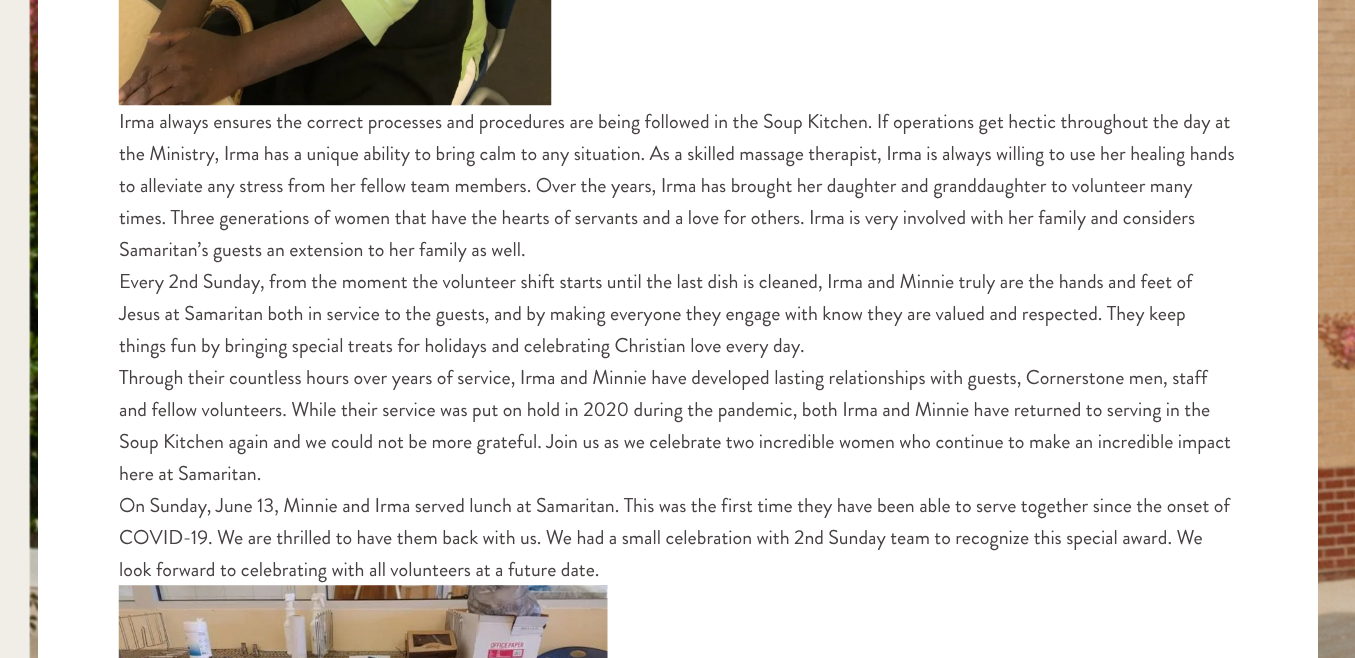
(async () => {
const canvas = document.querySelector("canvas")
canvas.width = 1355
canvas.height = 658
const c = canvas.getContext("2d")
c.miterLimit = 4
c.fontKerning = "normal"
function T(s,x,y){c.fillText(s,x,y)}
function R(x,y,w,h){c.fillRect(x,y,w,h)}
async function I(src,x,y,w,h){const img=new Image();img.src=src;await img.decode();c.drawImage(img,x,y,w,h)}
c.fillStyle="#fff"
R(0,0,1355,658)
await I("1.png",0,0,1355,658)
R(38,0,1280,658)
await I("2.png",118,0,434,106)
c.font="20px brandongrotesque"
c.fillStyle="#464041"
T("Irma always ensures the correct processes and procedures are being followed in the Soup Kitchen. If operations get hectic throughout the day at",119,128)
T("the Ministry, Irma has a unique ability to bring calm to any situation. As a skilled massage therapist, Irma is always willing to use her healing hands",119,160)
T("to alleviate any stress from her fellow team members. Over the years, Irma has brought her daughter and granddaughter to volunteer many",119,192)
T("times. Three generations of women that have the hearts of servants and a love for others. Irma is very involved with her family and considers",119,224)
T("Samaritan’s guests an extension to her family as well.",119,256)
T("Every 2nd Sunday, from the moment the volunteer shift starts until the last dish is cleaned, Irma and Minnie truly are the hands and feet of",119,288)
T("Jesus at Samaritan both in service to the guests, and by making everyone they engage with know they are valued and respected. They keep",119,320)
T("things fun by bringing special treats for holidays and celebrating Christian love every day.",119,352)
T("Through their countless hours over years of service, Irma and Minnie have developed lasting relationships with guests, Cornerstone men, staff",119,384)
T("and fellow volunteers. While their service was put on hold in 2020 during the pandemic, both Irma and Minnie have returned to serving in the",119,416)
T("Soup Kitchen again and we could not be more grateful. Join us as we celebrate two incredible women who continue to make an incredible impact",119,448)
T("here at Samaritan.",119,480)
T("On Sunday, June 13, Minnie and Irma served lunch at Samaritan. This was the first time they have been able to serve together since the onset of",119,512)
T("COVID-19. We are thrilled to have them back with us. We had a small celebration with 2nd Sunday team to recognize this special award. We",119,544)
T("look forward to celebrating with all volunteers at a future date.",119,576)
await I("3.png",118,585,490,73)
})()
